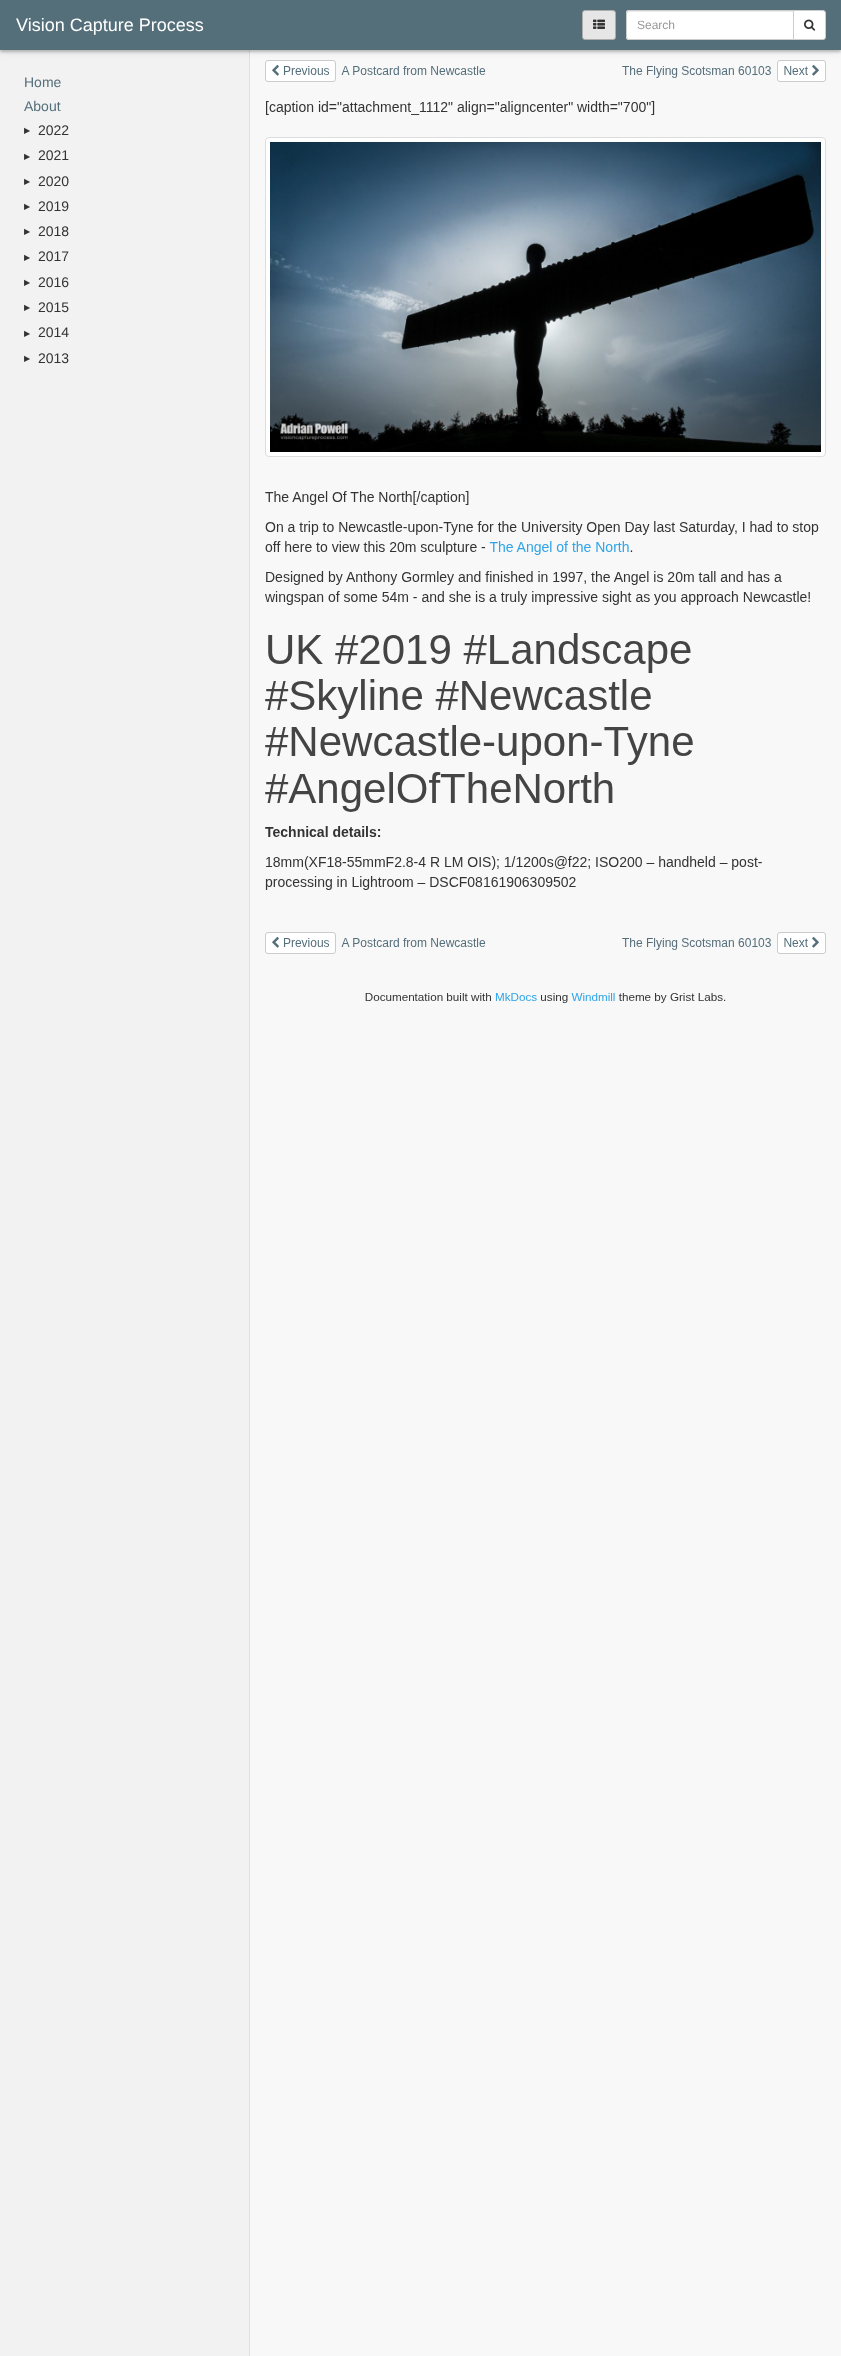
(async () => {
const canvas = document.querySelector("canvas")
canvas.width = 841
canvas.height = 2356
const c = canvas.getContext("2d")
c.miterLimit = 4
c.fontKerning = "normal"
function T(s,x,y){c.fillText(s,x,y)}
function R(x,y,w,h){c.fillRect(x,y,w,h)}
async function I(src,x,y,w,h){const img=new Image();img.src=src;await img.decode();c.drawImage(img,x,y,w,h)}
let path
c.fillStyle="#f8f8f8"
R(0,0,841,2356)
c.fillStyle="#f2f2f2"
R(0,50,249,2306)
c.fillStyle="#e0e0e0"
R(249,50,1,2306)
await I("3.png",265,60,561,943)
c.fillStyle="#0000000d"
c.filter="blur(4px)"
c.beginPath()
c.rect(0,3,841,50)
c.fill()
c.filter="none"
c.fillStyle="#0000003d"
c.filter="blur(1.5px)"
c.beginPath()
c.rect(0,2,841,50)
c.fill()
c.filter="none"
c.fillStyle="#546e7a"
R(0,0,841,50)
c.font="18px Liberation Sans"
c.fillStyle="#fff"
T("Vision Capture Process",16,31)
c.fillStyle="#e6e6e6"
c.beginPath()
c.roundRect(582.5,10.5,33,29,2.5)
c.fill()
c.strokeStyle="#adadad"
c.stroke()
await I("1.png",593,19,12,10)
c.fillStyle="#fff"
c.beginPath()
c.roundRect(626,10,168,30,[3,0,0,3])
c.fill()
c.fillStyle="#ececec"
path = new Path2D("M629 12h164v-1h-164c-2 0-2 2-2 3c0-1 1-2 2-2z")
c.fill(path)
c.beginPath()
c.roundRect(626.5,10.5,167,29,[2.5,0,0,2.5])
c.strokeStyle="#ccc"
c.stroke()
c.font="12px Liberation Sans"
c.fillStyle="#999"
T("Search",637,29)
c.fillStyle="#fff"
c.beginPath()
c.roundRect(793.5,10.5,32,29,[0,2.5,2.5,0])
c.fill()
c.stroke()
await I("2.png",804,19,12,12)
c.font="14px Liberation Sans"
c.fillStyle="#546e7a"
T("Home",24,87)
T("About",24,111)
c.font="8px DejaVu Sans"
c.fillStyle="#333"
T("▶︎",24,133)
c.font="14px Liberation Sans"
T("2022",38,135)
c.font="8px DejaVu Sans"
T("▶︎",24,159)
c.font="14px Liberation Sans"
T("2021",38,160)
c.font="8px DejaVu Sans"
T("▶︎",24,184)
c.font="14px Liberation Sans"
T("2020",38,186)
c.font="8px DejaVu Sans"
T("▶︎",24,209)
c.font="14px Liberation Sans"
T("2019",38,211)
c.font="8px DejaVu Sans"
T("▶︎",24,234)
c.font="14px Liberation Sans"
T("2018",38,236)
c.font="8px DejaVu Sans"
T("▶︎",24,260)
c.font="14px Liberation Sans"
T("2017",38,261)
c.font="8px DejaVu Sans"
T("▶︎",24,285)
c.font="14px Liberation Sans"
T("2016",38,287)
c.font="8px DejaVu Sans"
T("▶︎",24,310)
c.font="14px Liberation Sans"
T("2015",38,312)
c.font="8px DejaVu Sans"
T("▶︎",24,336)
c.font="14px Liberation Sans"
T("2014",38,337)
c.font="8px DejaVu Sans"
T("▶︎",24,361)
c.font="14px Liberation Sans"
T("2013",38,363)
})()
